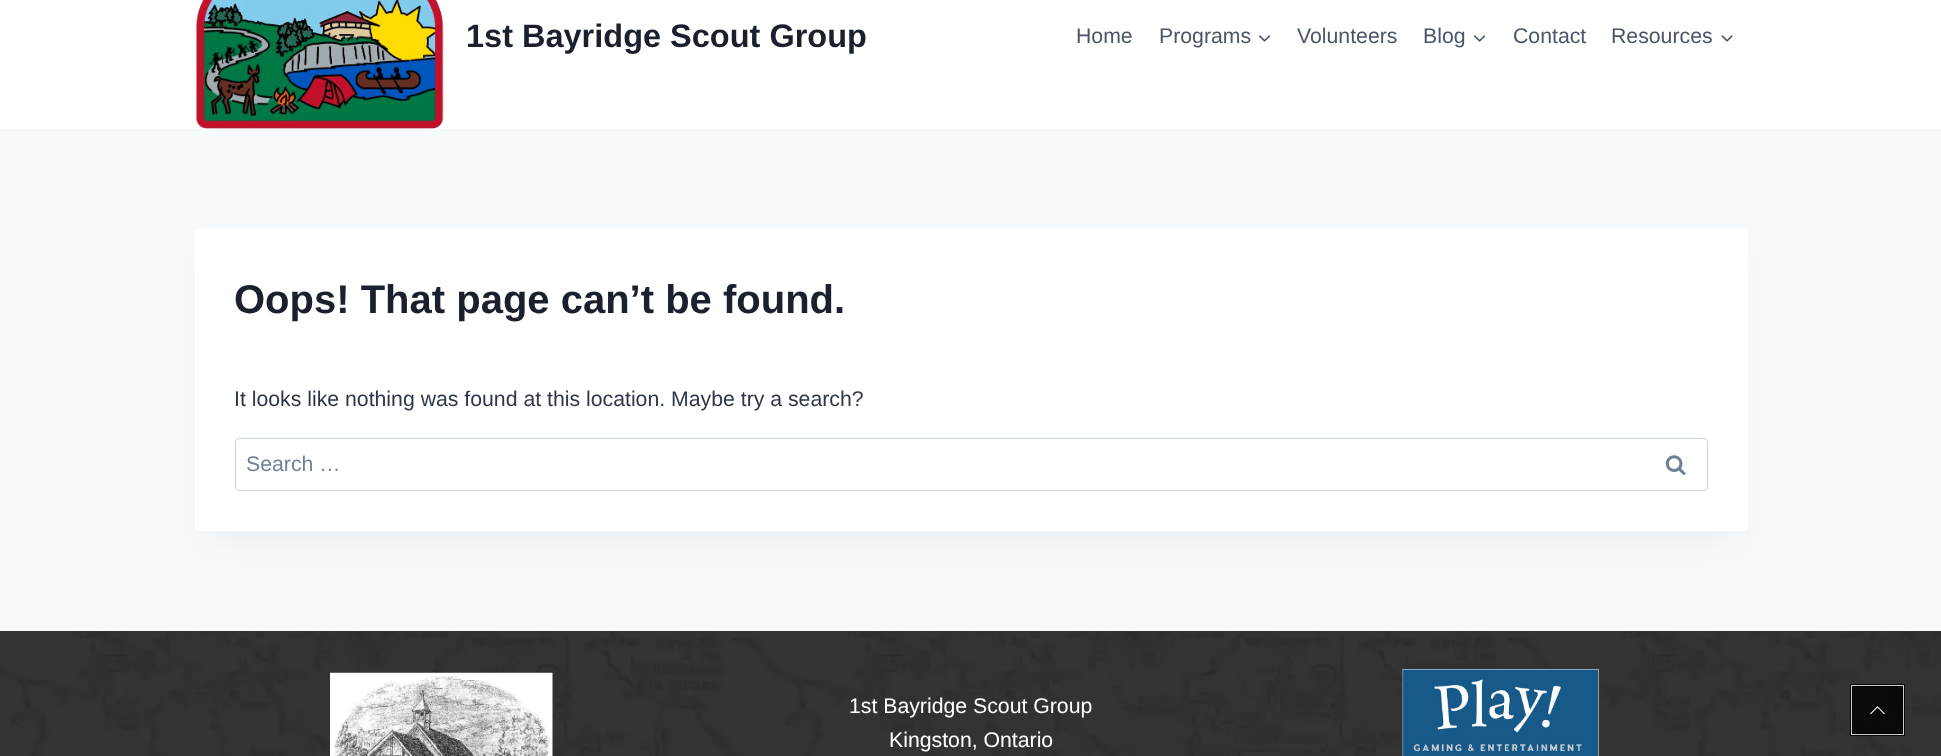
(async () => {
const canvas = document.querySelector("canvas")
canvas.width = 1941
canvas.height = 756
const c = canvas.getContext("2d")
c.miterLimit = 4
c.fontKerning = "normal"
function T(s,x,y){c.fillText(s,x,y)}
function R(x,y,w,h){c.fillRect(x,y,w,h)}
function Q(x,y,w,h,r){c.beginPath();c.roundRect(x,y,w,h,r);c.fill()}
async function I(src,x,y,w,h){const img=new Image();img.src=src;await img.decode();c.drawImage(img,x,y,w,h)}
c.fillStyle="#f7fafc"
R(0,0,1941,756)
c.fillStyle="#fff"
R(0,0,1941,129)
await I("1.png",195,0,249,129)
c.font="bold 32.5px Liberation Sans"
c.fillStyle="#1a202c"
T("1st Bayridge Scout Group",466,47)
c.font="21.25px Liberation Sans"
c.fillStyle="#4a5568"
T("Home",1076,43)
T("Programs",1159,43)
await I("2.png",1259,35,12,7)
T("Volunteers",1297,43)
T("Blog",1423,43)
await I("2.png",1474,35,12,7)
T("Contact",1513,43)
T("Resources",1611,43)
await I("3.png",1721,35,12,7)
c.fillStyle="#0000000d"
c.filter="blur(15.5px)"
c.beginPath()
c.rect(208,260,1527,278)
c.fill()
c.filter="none"
c.fillStyle="#fff"
Q(195,229,1553,302,5)
c.font="bold 40px Liberation Sans"
c.fillStyle="#1a202c"
T("Oops! That page can’t be found.",234,313)
c.font="21.25px Liberation Sans"
c.fillStyle="#2d3748"
T("It looks like nothing was found at this location. Maybe try a search?",234,406)
c.beginPath()
c.roundRect(235.5,438.5,1472,52,3.5)
c.strokeStyle="#cbd5e0"
c.stroke()
c.fillStyle="#718096"
T("Search …",246,471)
await I("4.png",1665,455,21,20)
c.fillStyle="#39393a"
R(0,631,1941,1)
await I("5.png",0,631,1941,125)
await I("6.png",330,672,223,84)
c.fillStyle="#fff"
T("1st Bayridge Scout Group",849,713)
T("Kingston, Ontario",889,747)
await I("7.png",1402,669,197,87)
c.strokeStyle="#000000cc"
c.lineWidth=3
c.strokeRect(1851.5,685.5,52,49)
c.strokeStyle="#cecece"
c.lineWidth=1
c.strokeRect(1851.5,685.5,52,49)
c.fillStyle="#000000cc"
R(1853,686,50,48)
await I("8.png",1870,706,15,9)
})()
